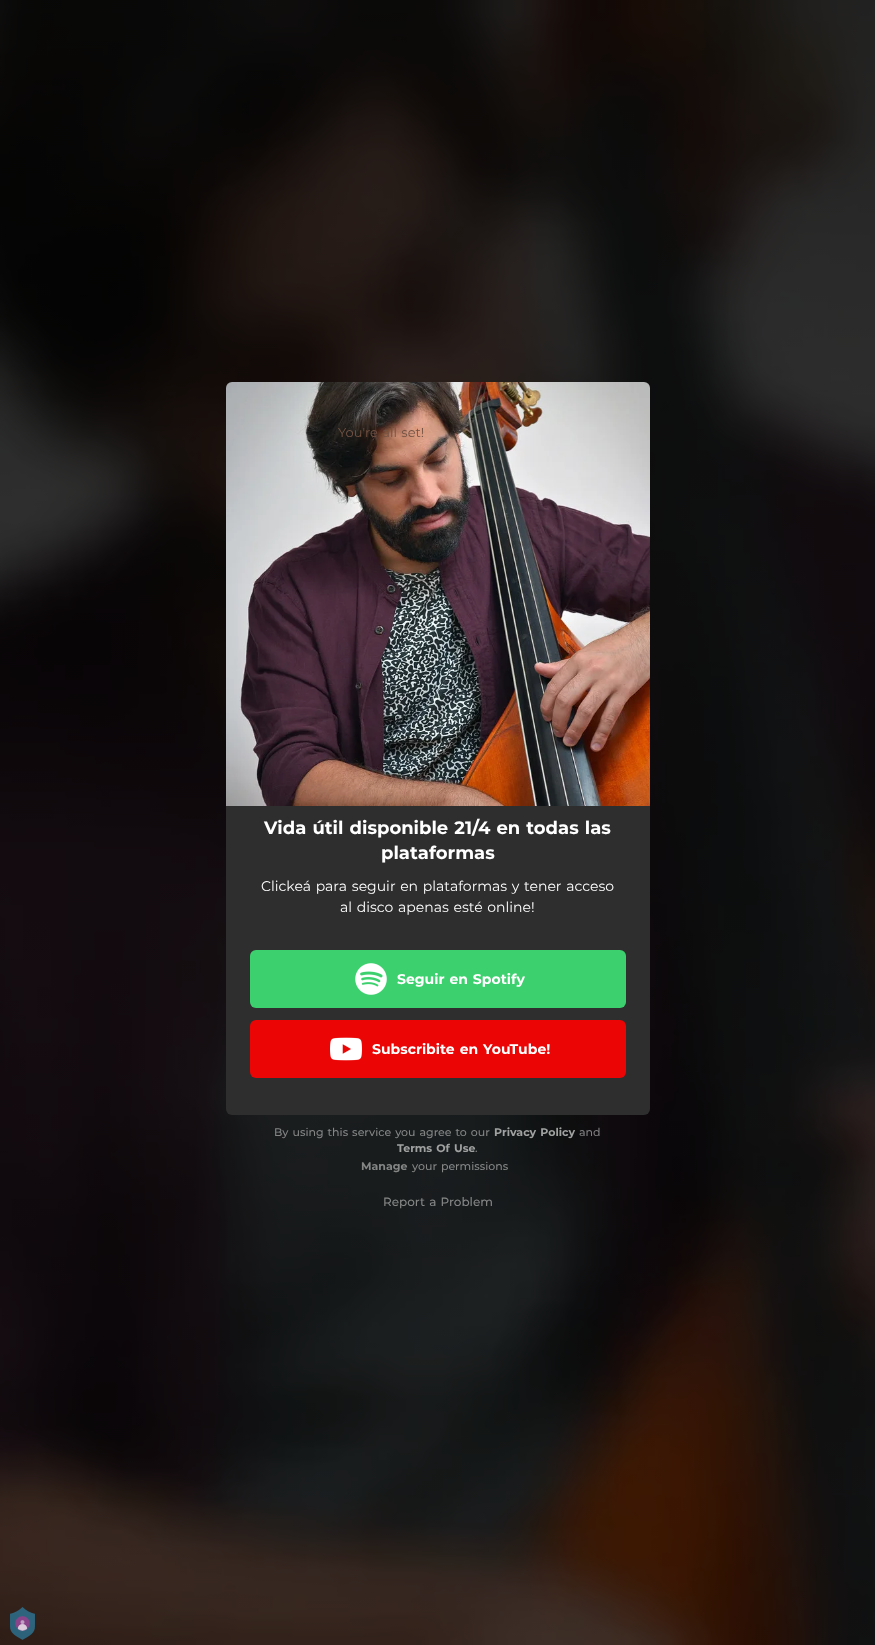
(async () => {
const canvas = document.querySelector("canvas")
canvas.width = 875
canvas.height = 1645
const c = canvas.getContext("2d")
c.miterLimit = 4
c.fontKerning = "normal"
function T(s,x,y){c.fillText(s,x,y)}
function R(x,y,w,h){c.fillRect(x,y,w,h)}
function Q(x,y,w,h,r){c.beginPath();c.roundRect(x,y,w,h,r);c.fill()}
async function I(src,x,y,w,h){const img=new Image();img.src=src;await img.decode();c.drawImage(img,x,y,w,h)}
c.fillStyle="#fff"
R(0,0,875,1645)
await I("1.png",0,0,875,1645)
await I("2.png",226,382,424,424)
c.wordSpacing="1px"
c.font="13px Montserrat"
c.fillStyle="#735243"
T("You're all set!",338,437)
c.fillStyle="#2e2e2e"
c.beginPath()
c.roundRect(226,806,424,309,[0,0,6,6])
c.fill()
c.font="bold 18px Montserrat"
c.fillStyle="#fff"
T("Vida útil disponible 21/4 en todas las",264,834)
c.wordSpacing="0px"
T("plataformas",381,859)
c.wordSpacing="1px"
c.font="14px Montserrat"
T("Clickeá para seguir en plataformas y tener acceso",261,891)
T("al disco apenas esté online!",340,912)
c.fillStyle="#3cd16e"
Q(250,950,376,58,6)
await I("3.png",355,963,32,32)
c.font="bold 14px Montserrat"
c.fillStyle="#fff"
T("Seguir en Spotify",397,984)
c.fillStyle="#eb0505"
Q(250,1020,376,58,6)
await I("4.png",330,1037,32,24)
c.fillStyle="#fff"
T("Subscribite en YouTube!",372,1054)
c.font="500 11px Montserrat"
c.fillStyle="#848686"
T("By using this service you agree to our",274,1136)
c.font="bold 11px Montserrat"
c.fillStyle="#a0a1a1"
T("Privacy Policy",494,1136)
c.wordSpacing="0px"
c.font="500 11px Montserrat"
c.fillStyle="#807f80"
T("and",579,1136)
c.wordSpacing="1px"
c.font="bold 11px Montserrat"
c.fillStyle="#a0a1a1"
T("Terms Of Use",397,1152)
c.wordSpacing="0px"
c.font="500 11px Montserrat"
c.fillStyle="#848686"
T(".",475,1152)
c.font="bold 11px Montserrat"
T("Manage",361,1170)
c.wordSpacing="1px"
c.font="500 11px Montserrat"
T("your permissions",412,1170)
c.font="500 12px Montserrat"
T("Report a Problem",383,1206)
await I("5.png",10,1607,25,33)
})()
